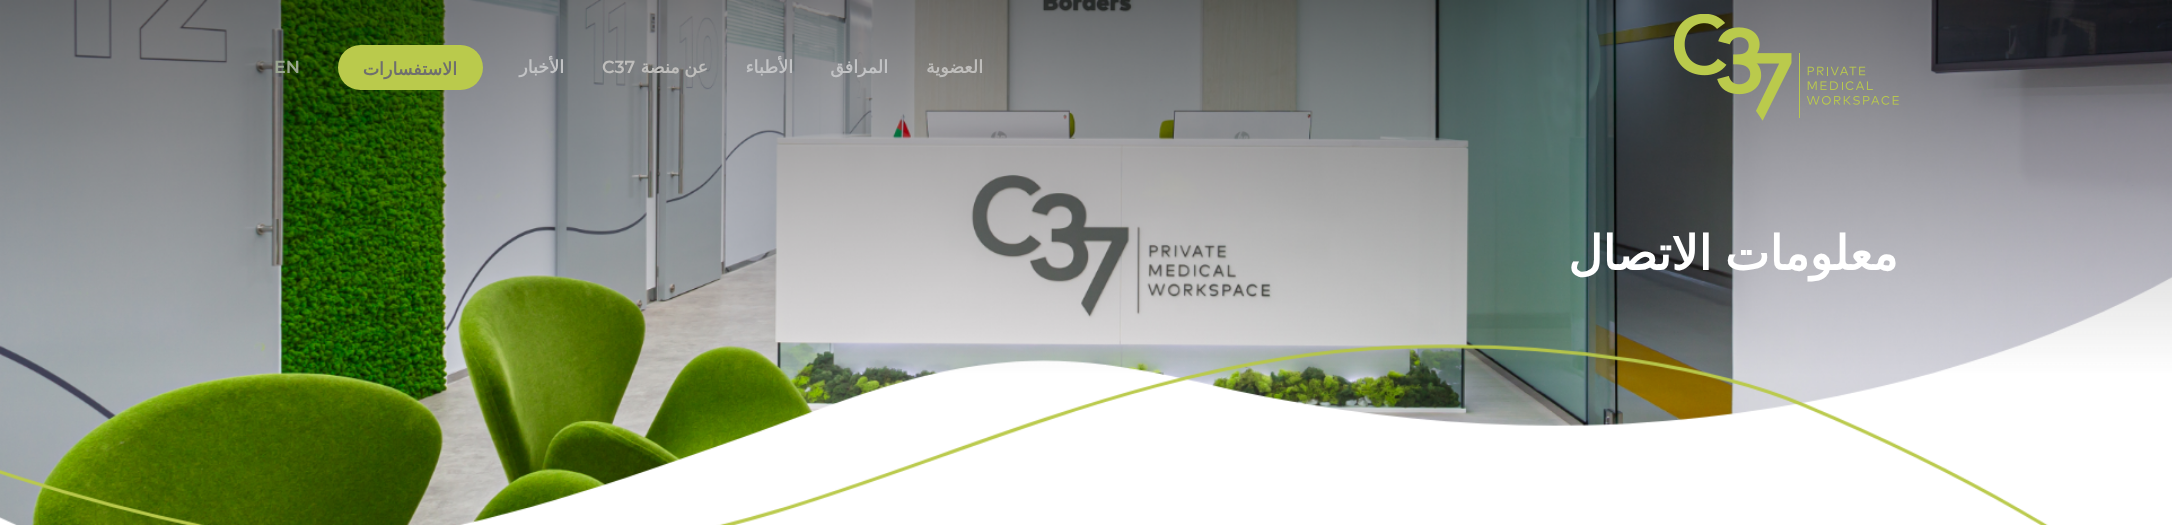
(async () => {
const canvas = document.querySelector("canvas")
canvas.width = 2172
canvas.height = 525
const c = canvas.getContext("2d")
c.miterLimit = 4
c.fontKerning = "normal"
function T(s,x,y){c.fillText(s,x,y)}
function R(x,y,w,h){c.fillRect(x,y,w,h)}
function Q(x,y,w,h,r){c.beginPath();c.roundRect(x,y,w,h,r);c.fill()}
async function I(src,x,y,w,h){const img=new Image();img.src=src;await img.decode();c.drawImage(img,x,y,w,h)}
c.fillStyle="#fff"
R(0,0,2172,525)
await I("2.png",0,0,2172,525)
await I("1.png",1674,14,225,107)
c.direction="rtl"
c.font="bold 17.5px DejaVu Sans"
c.fillStyle="#bfbebc"
T("العضوية",983,73)
c.fillStyle="#c2c3c5"
T("المرافق",888,73)
T("الأطباء",793,73)
c.wordSpacing="-1px"
c.fillStyle="#bfbebc"
T("عن منصة",708,73)
c.wordSpacing="0px"
c.direction="ltr"
c.font="600 17.5px Montserrat"
T("C37",602,73)
c.direction="rtl"
c.font="bold 17.5px DejaVu Sans"
c.fillStyle="#c2c3c5"
T("الأخبار",564,73)
c.fillStyle="#baca4c"
Q(338,45,145,45,22.5)
c.fillStyle="#6f6f6e"
T("الاستفسارات",457,75)
c.direction="ltr"
c.font="600 17.5px Montserrat"
c.fillStyle="#9ba792"
T("EN",274,73)
c.wordSpacing="-2px"
c.direction="rtl"
c.font="bold 47.5px DejaVu Sans"
c.fillStyle="#fff"
T("معلومات الاتصال",1898,270)
})()
